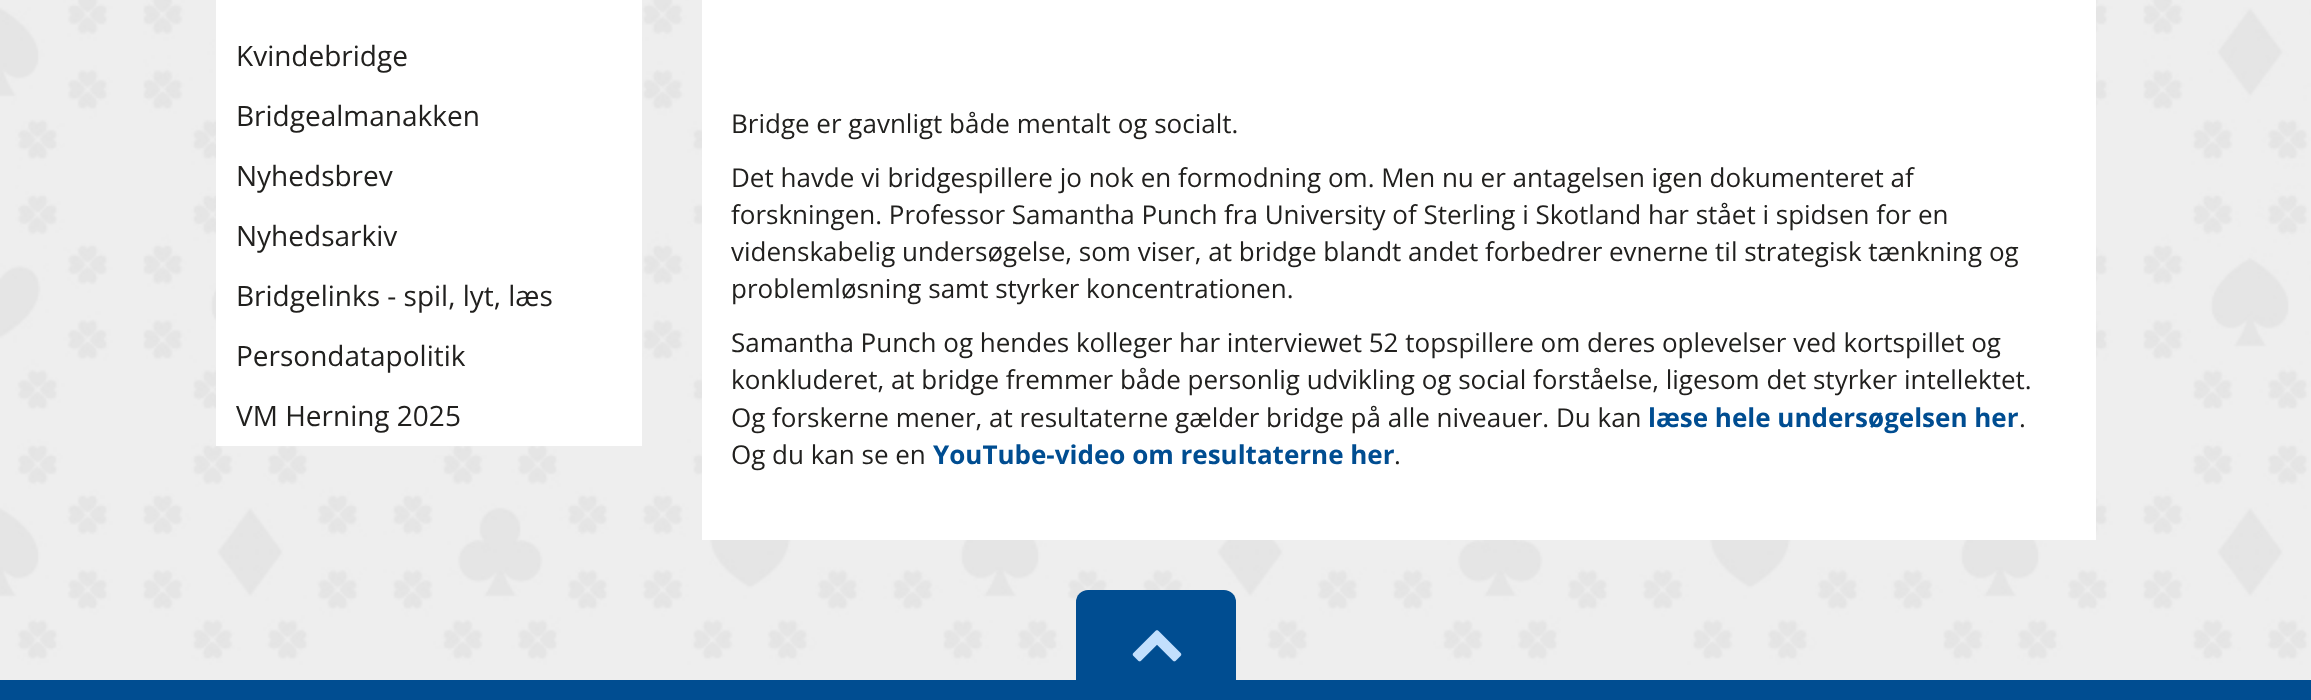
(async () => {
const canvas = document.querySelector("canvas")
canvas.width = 2311
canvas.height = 700
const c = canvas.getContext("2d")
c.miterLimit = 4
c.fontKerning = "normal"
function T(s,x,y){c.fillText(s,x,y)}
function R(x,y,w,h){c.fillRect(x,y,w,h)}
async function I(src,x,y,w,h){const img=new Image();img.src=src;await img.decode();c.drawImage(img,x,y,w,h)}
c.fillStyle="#fff"
R(0,0,2311,700)
await I("1.png",0,0,2311,680)
R(216,0,426,446)
c.font="28px Open Sans"
c.fillStyle="#21201e"
T("Kvindebridge",236,66)
T("Bridgealmanakken",236,126)
T("Nyhedsbrev",236,186)
T("Nyhedsarkiv",236,246)
T("Bridgelinks - spil, lyt, læs",236,306)
T("Persondatapolitik",236,366)
T("VM Herning 2025",236,426)
c.fillStyle="#fff"
R(702,0,1394,540)
c.font="26px Open Sans"
c.fillStyle="#21201e"
T("Bridge er gavnligt både mentalt og socialt.",731,133)
T("Det havde vi bridgespillere jo nok en formodning om. Men nu er antagelsen igen dokumenteret af",731,187)
T("forskningen. Professor Samantha Punch fra University of Sterling i Skotland har stået i spidsen for en",731,224)
T("videnskabelig undersøgelse, som viser, at bridge blandt andet forbedrer evnerne til strategisk tænkning og",731,261)
T("problemløsning samt styrker koncentrationen.",731,298)
T("Samantha Punch og hendes kolleger har interviewet 52 topspillere om deres oplevelser ved kortspillet og",731,352)
T("konkluderet, at bridge fremmer både personlig udvikling og social forståelse, ligesom det styrker intellektet.",731,389)
T("Og forskerne mener, at resultaterne gælder bridge på alle niveauer. Du kan",731,427)
c.font="bold 26px Open Sans"
c.fillStyle="#004d91"
T("læse hele undersøgelsen her",1648,427)
c.font="26px Open Sans"
c.fillStyle="#21201e"
T(".",2019,427)
T("Og du kan se en",731,464)
c.font="bold 26px Open Sans"
c.fillStyle="#004d91"
T("YouTube-video om resultaterne her",933,464)
c.font="26px Open Sans"
c.fillStyle="#21201e"
T(".",1394,464)
c.fillStyle="#004d91"
R(0,680,2311,20)
c.beginPath()
c.roundRect(1076,590,160,90,[12,12,0,0])
c.fill()
await I("2.png",1132,630,50,32)
})()
